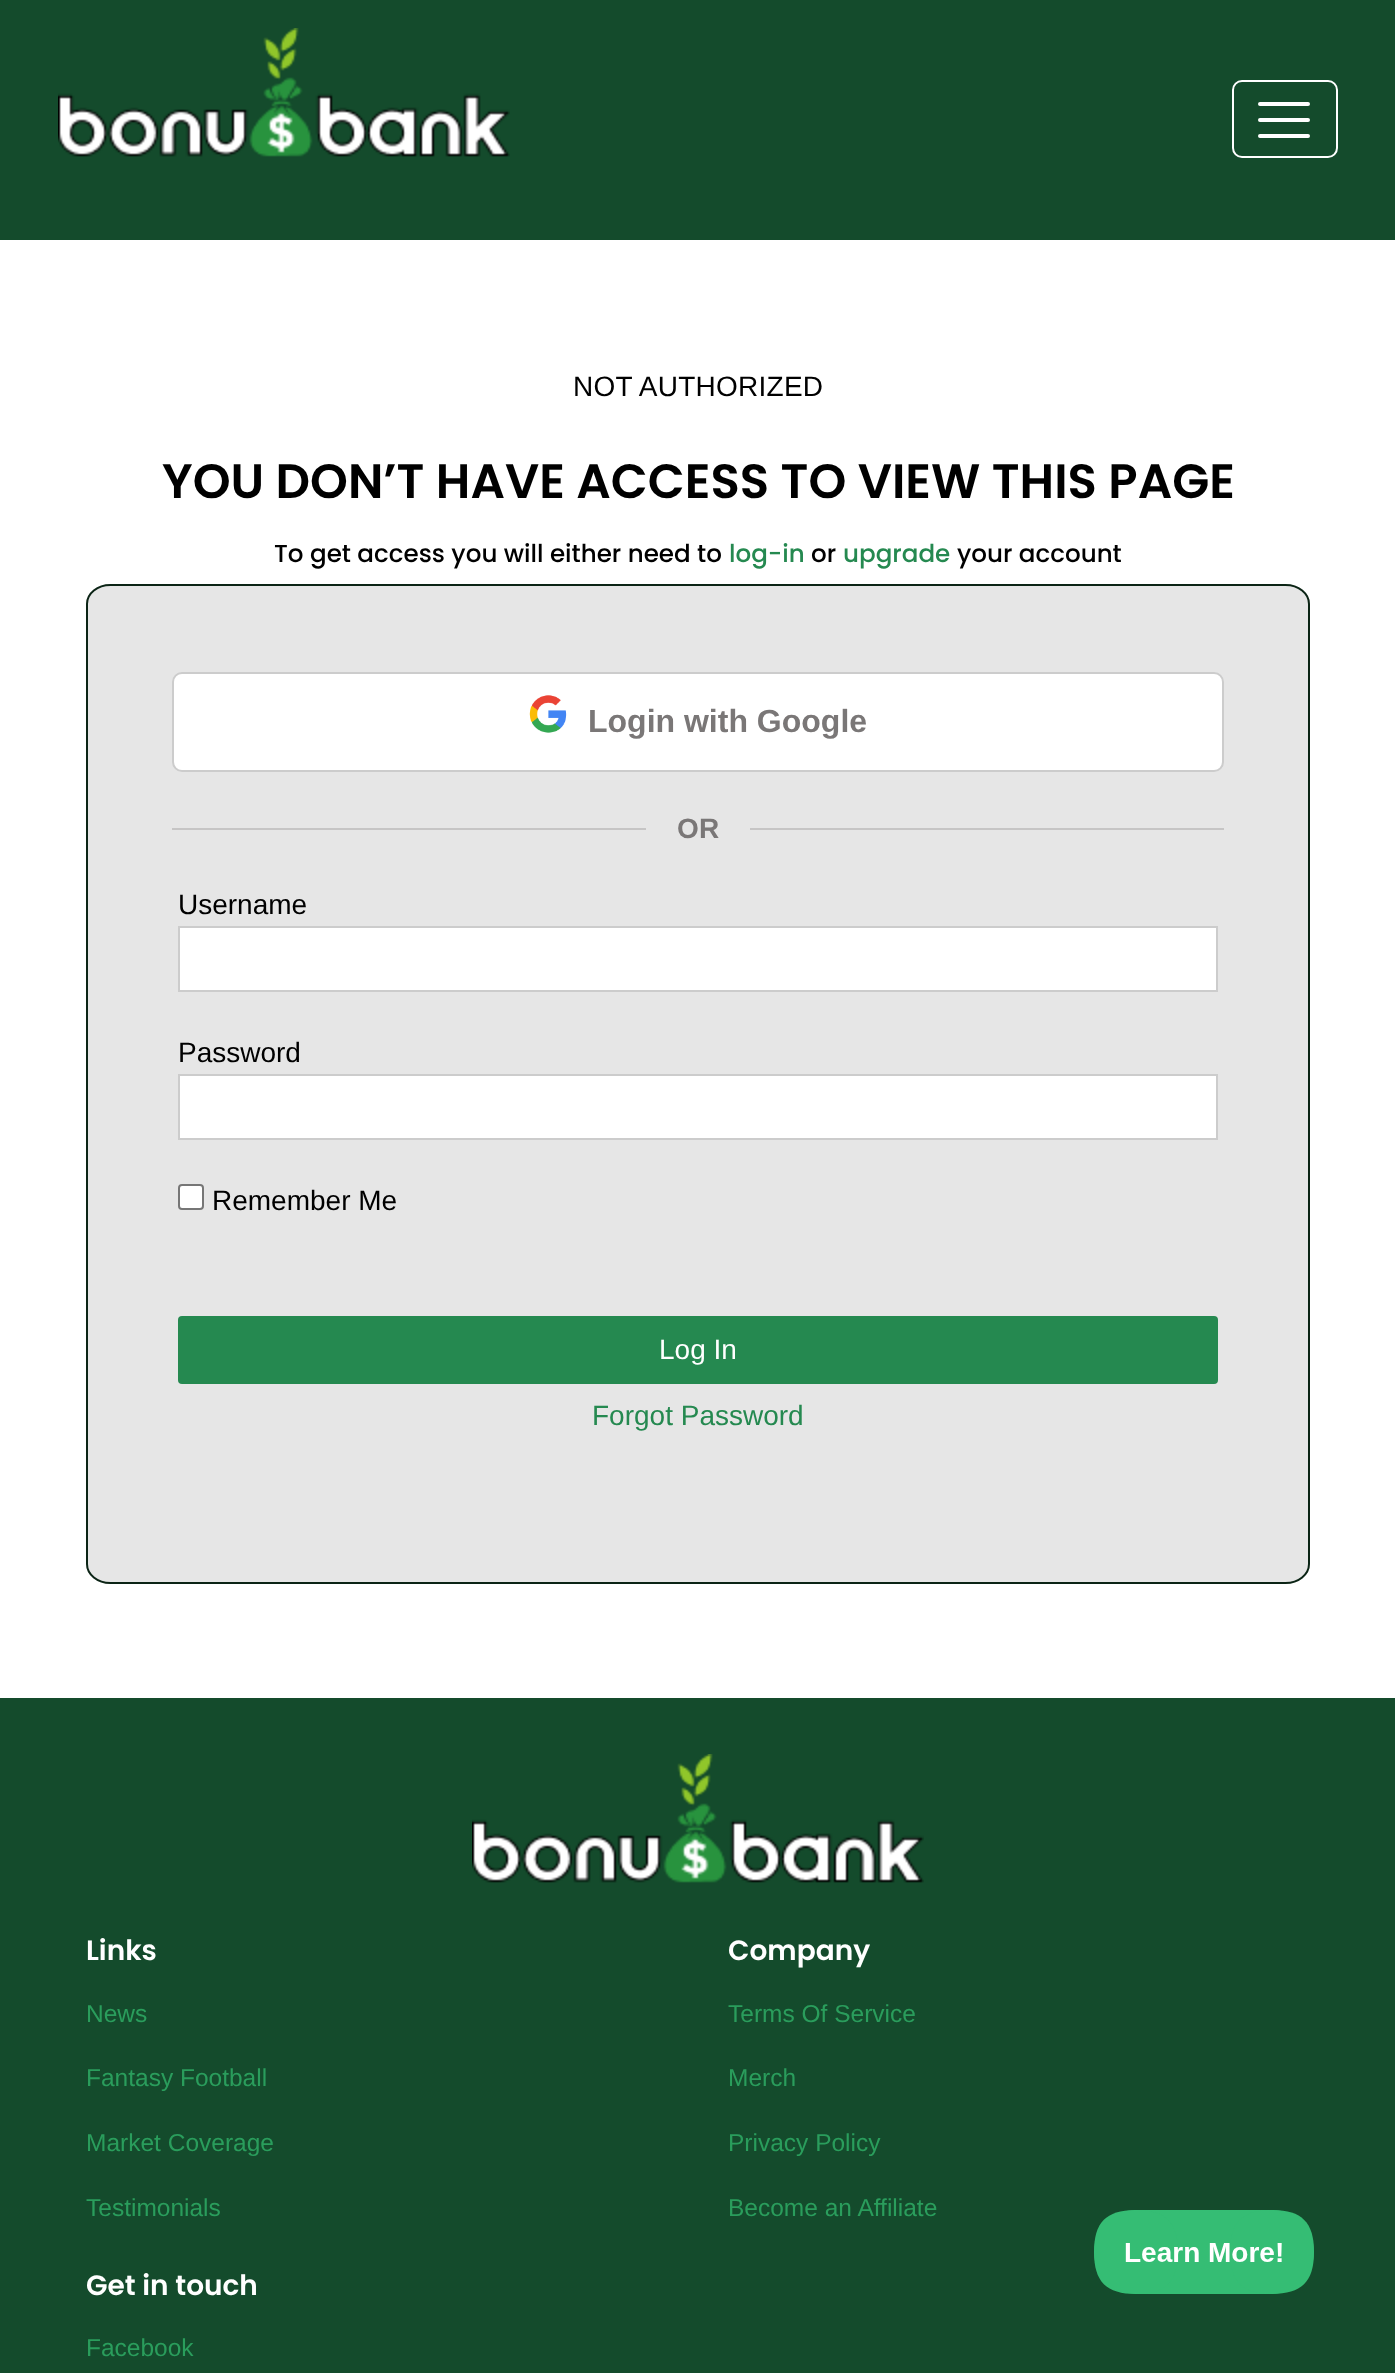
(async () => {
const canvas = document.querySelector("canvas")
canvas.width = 1395
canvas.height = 2373
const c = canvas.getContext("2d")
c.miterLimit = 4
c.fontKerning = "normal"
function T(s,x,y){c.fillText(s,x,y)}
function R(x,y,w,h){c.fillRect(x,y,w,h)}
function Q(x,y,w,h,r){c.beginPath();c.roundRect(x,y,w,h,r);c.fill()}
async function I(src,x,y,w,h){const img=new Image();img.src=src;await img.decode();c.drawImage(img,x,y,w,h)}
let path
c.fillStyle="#fff"
R(0,0,1395,2373)
c.fillStyle="#144b2c"
R(0,0,1395,240)
await I("1.png",58,28,452,129)
c.beginPath()
c.roundRect(1233,81,104,76,9)
c.strokeStyle="#fff"
c.lineWidth=2
c.stroke()
path = new Path2D("M1260 104h48m-48 16h48m-48 16h48")
c.lineWidth=4
c.lineCap="round"
c.stroke(path)
c.letterSpacing="0.25px"
c.font="28px Liberation Sans"
c.fillStyle="#000"
T("NOT AUTHORIZED",573,396)
c.letterSpacing="0px"
c.font="600 48.2px Poppins"
T("YOU DON’T HAVE ACCESS TO VIEW THIS PAGE",162,498)
c.font="500 24.6px Poppins"
T("To get access you will either need to",274,562)
c.fillStyle="#258950"
T("log-in",729,562)
c.fillStyle="#000"
T("or",811,562)
c.fillStyle="#258950"
T("upgrade",843,562)
c.fillStyle="#000"
T("your account",957,562)
c.fillStyle="#e6e6e6"
path = new Path2D("M110 584h1176c13 0 24 9 24 20v960c0 11-11 20-24 20h-1176c-13 0-24-9-24-20v-960c0-11 11-20 24-20z")
c.fill(path)
path = new Path2D("M110.5 585h1175c13 0 23.5 8.5 23.5 19v960c0 10.5-10.5 19-23.5 19h-1175c-13 0-23.5-8.5-23.5-19v-960c0-10.5 10.5-19 23.5-19z")
c.strokeStyle="#0b2415"
c.lineWidth=2
c.lineCap="butt"
c.stroke(path)
c.fillStyle="#fff"
c.beginPath()
c.roundRect(173,673,1050,98,9)
c.fill()
c.strokeStyle="#ccc"
c.stroke()
await I("2.png",529,695,38,38)
c.font="bold 32px Liberation Sans"
c.fillStyle="#7a7777"
T("Login with Google",588,732)
c.fillStyle="#c6c5c5"
R(750,828,474,2)
R(172,828,474,2)
c.letterSpacing="0.25px"
c.font="bold 28px Liberation Sans"
c.fillStyle="#7a7777"
T("OR",677,838)
c.letterSpacing="0px"
c.font="28px Liberation Sans"
c.fillStyle="#000"
T("Username",178,914)
c.fillStyle="#fff"
c.beginPath()
c.rect(179,927,1038,64)
c.fill()
c.stroke()
c.fillStyle="#000"
T("Password",178,1062)
c.fillStyle="#fff"
c.beginPath()
c.rect(179,1075,1038,64)
c.fill()
c.stroke()
c.beginPath()
c.roundRect(179,1185,24,24,3)
c.fill()
c.strokeStyle="#767676"
c.stroke()
c.fillStyle="#000"
T("Remember Me",212,1210)
c.fillStyle="#258950"
Q(178,1316,1040,68,4)
c.fillStyle="#fff"
T("Log In",659,1359)
c.fillStyle="#258950"
T("Forgot Password",592,1425)
c.fillStyle="#144b2c"
R(0,1698,1395,675)
await I("1.png",472,1754,452,129)
c.font="600 28px Poppins"
c.fillStyle="#fff"
T("Links",86,1960)
c.font="24.5px Liberation Sans"
c.fillStyle="#2a9d5c"
T("News",86,2022)
T("Fantasy Football",86,2086)
T("Market Coverage",86,2151)
T("Testimonials",86,2216)
c.font="600 28px Poppins"
c.fillStyle="#fff"
T("Company",728,1960)
c.font="24.5px Liberation Sans"
c.fillStyle="#2a9d5c"
T("Terms Of Service",728,2022)
T("Merch",728,2086)
T("Privacy Policy",728,2151)
T("Become an Affiliate",728,2216)
c.font="600 28px Poppins"
c.fillStyle="#fff"
T("Get in touch",86,2295)
c.font="24.5px Liberation Sans"
c.fillStyle="#2a9d5c"
T("Facebook",86,2356)
await I("3.png",1094,2210,220,84)
})()
